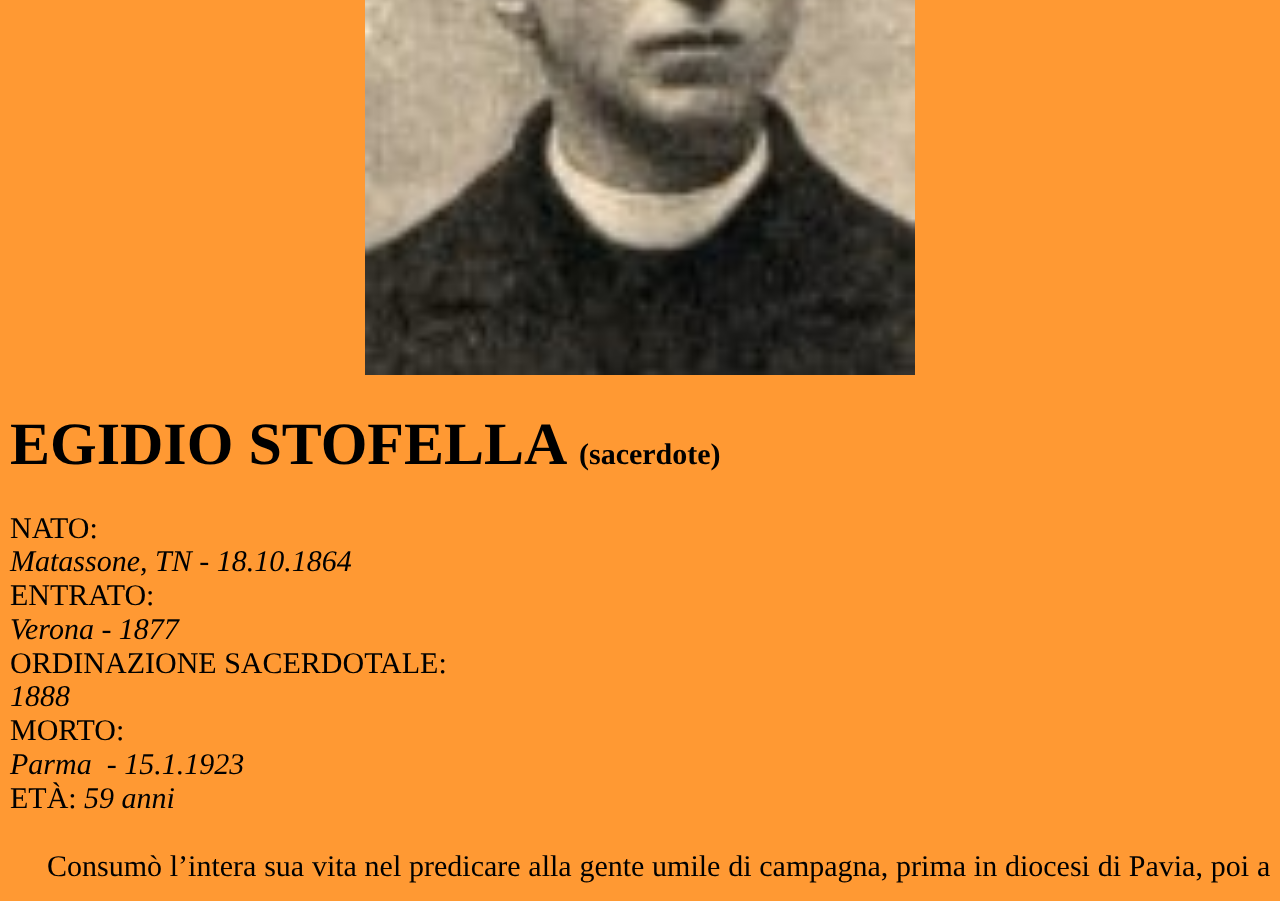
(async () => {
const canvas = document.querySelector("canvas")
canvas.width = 1280
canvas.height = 901
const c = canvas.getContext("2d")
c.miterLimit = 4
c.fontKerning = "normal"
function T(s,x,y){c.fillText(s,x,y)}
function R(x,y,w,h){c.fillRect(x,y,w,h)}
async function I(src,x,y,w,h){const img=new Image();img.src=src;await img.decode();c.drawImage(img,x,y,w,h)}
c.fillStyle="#f93"
R(0,0,1280,901)
await I("1.png",365,0,550,375)
c.font="bold 60px Liberation Serif"
c.fillStyle="#000"
T("EGIDIO STOFELLA",10,464)
c.font="bold 30px Liberation Serif"
T("(sacerdote)",579,464)
c.font="30px Liberation Serif"
T("NATO:",10,538)
c.font="italic 30px Liberation Serif"
T("Matassone, TN - 18.10.1864",10,571)
c.font="30px Liberation Serif"
T("ENTRATO:",10,605)
c.font="italic 30px Liberation Serif"
T("Verona - 1877",10,639)
c.font="30px Liberation Serif"
T("ORDINAZIONE SACERDOTALE:",10,673)
c.font="italic 30px Liberation Serif"
T("1888",10,706)
c.font="30px Liberation Serif"
T("MORTO:",10,740)
c.font="italic 30px Liberation Serif"
T("Parma  - 15.1.1923",10,774)
c.font="30px Liberation Serif"
T("ETÀ:",10,808)
c.font="italic 30px Liberation Serif"
T("59 anni",84,808)
c.wordSpacing="0.25px"
c.font="30px Liberation Serif"
T("Consumò l’intera sua vita nel predicare alla gente umile di campagna, prima in diocesi di Pavia, poi",47,876)
c.wordSpacing="0px"
T("a",1257,876)
})()
